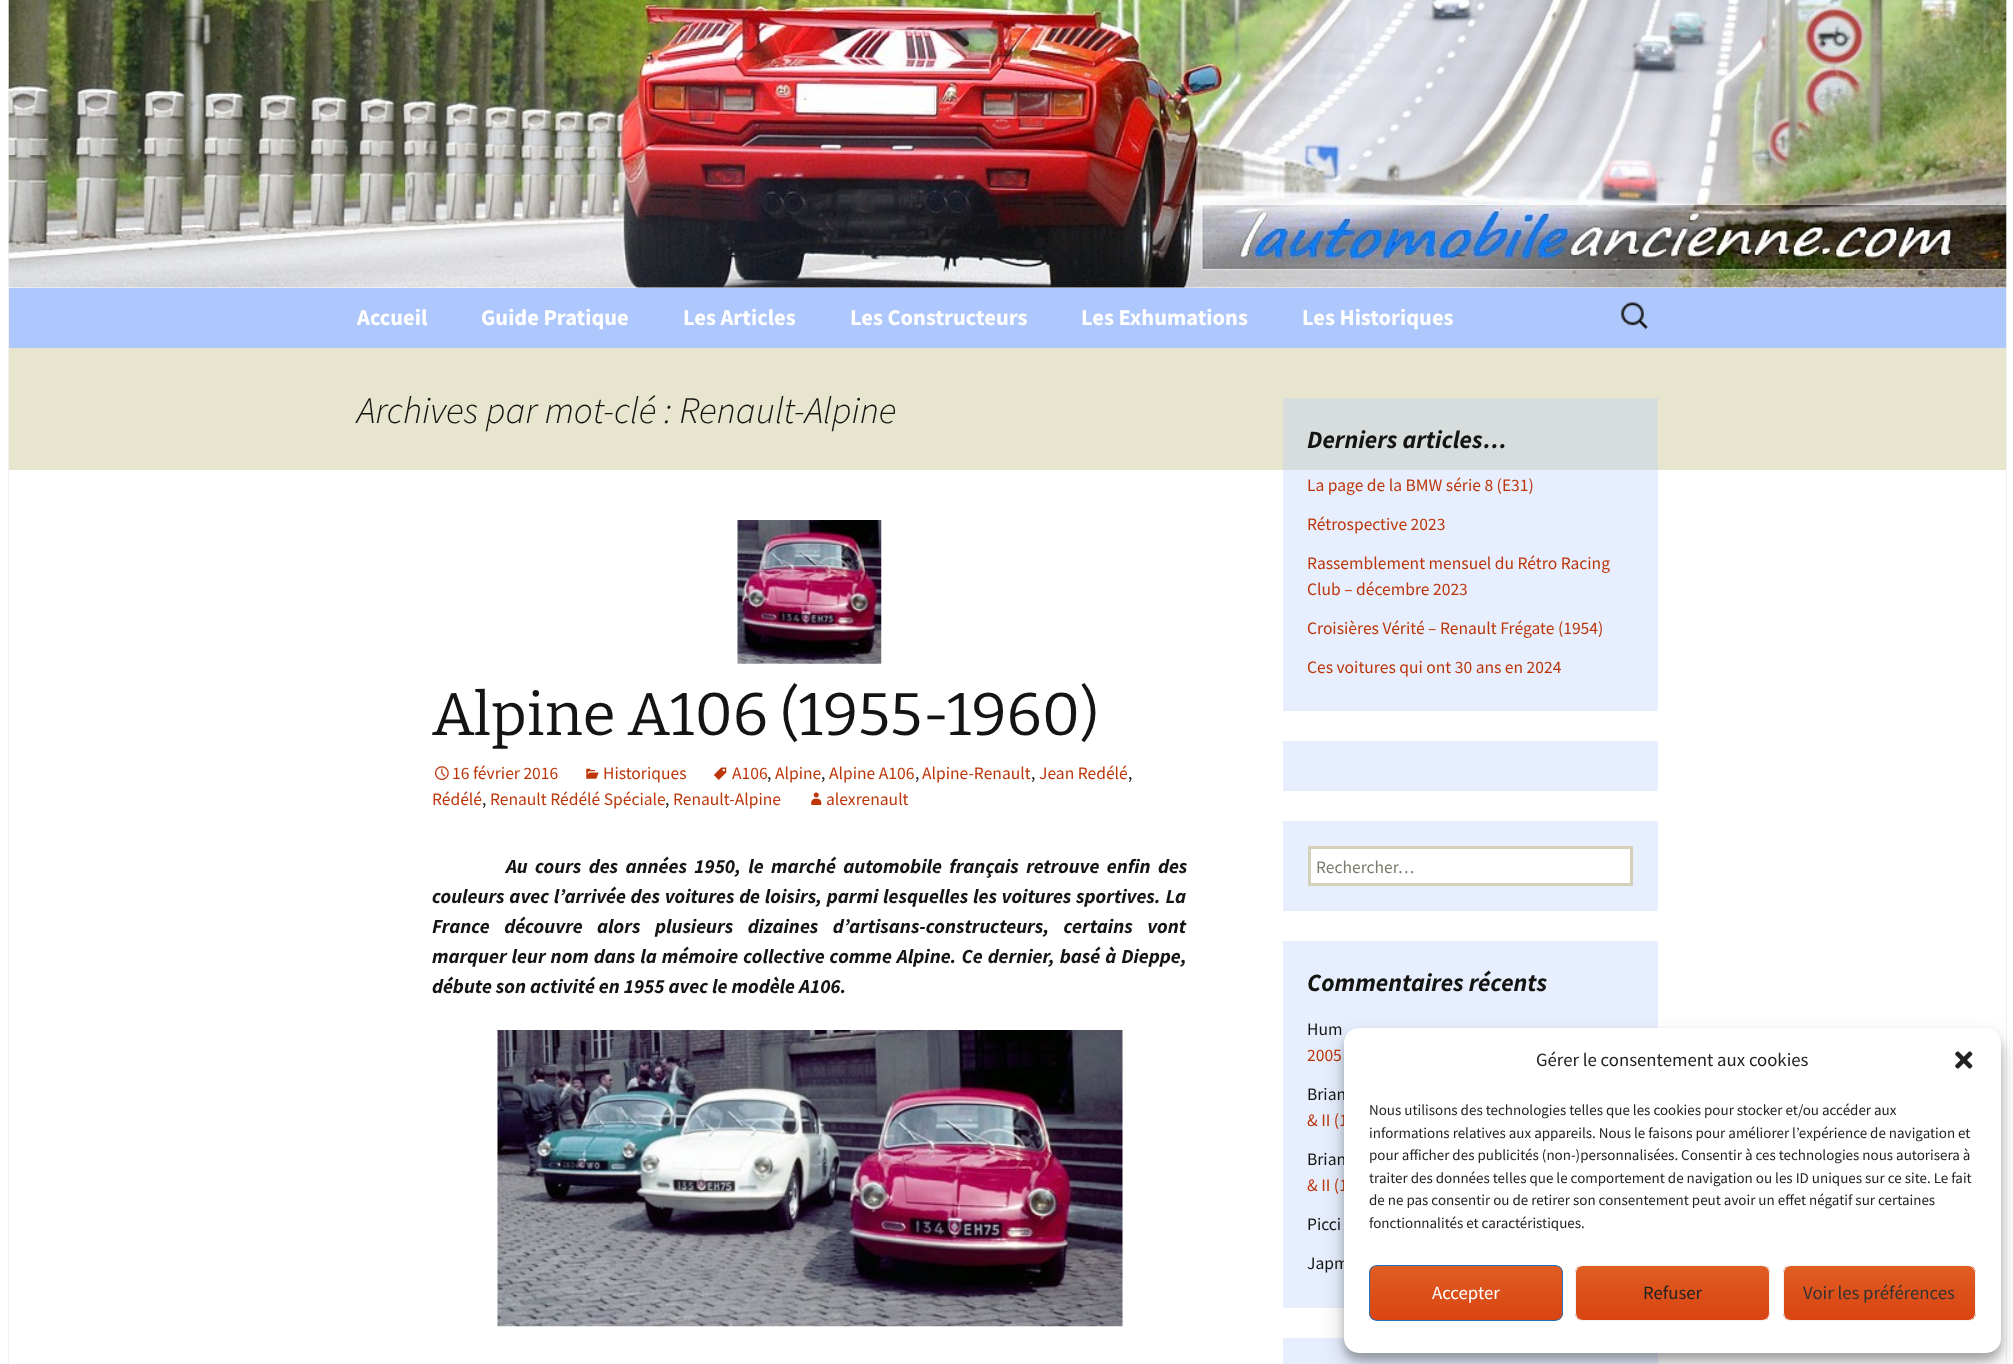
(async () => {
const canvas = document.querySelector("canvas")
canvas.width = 2013
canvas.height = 1364
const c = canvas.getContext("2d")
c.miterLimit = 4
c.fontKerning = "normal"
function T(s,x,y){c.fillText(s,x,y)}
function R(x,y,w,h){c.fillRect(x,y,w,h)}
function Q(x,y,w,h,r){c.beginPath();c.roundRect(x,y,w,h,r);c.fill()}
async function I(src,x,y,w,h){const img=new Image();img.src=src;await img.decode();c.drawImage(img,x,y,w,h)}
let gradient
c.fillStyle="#fff"
R(0,0,2013,1364)
c.fillStyle="#e7eefe"
R(1283,470,375,241)
c.fillStyle="#f2f2f2"
R(2006,0,1,1364)
R(8,0,1,1364)
await I("1.png",8,0,1999,288)
c.fillStyle="#aec7fc"
R(9,288,1997,60)
c.font="bold 22.5px Source Sans Pro"
c.fillStyle="#fff"
T("Accueil",357,325)
T("Guide Pratique",481,325)
T("Les Articles",683,325)
T("Les Constructeurs",850,325)
T("Les Exhumations",1081,325)
T("Les Historiques",1302,325)
await I("2.png",1621,302,27,27)
c.fillStyle="#e8e5ce"
R(9,348,1997,122)
c.fillStyle="#d7dcdc"
R(1283,398,375,72)
c.font="italic 300 37.5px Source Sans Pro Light"
c.fillStyle="#141412"
T("Archives par mot-clé : Renault-Alpine",357,423)
await I("3.png",737,520,145,144)
c.font="60px Bitter"
T("Alpine A106 (1955-1960)",432,735)
await I("4.png",713,767,14,13)
c.font="17.5px Source Sans Pro"
c.fillStyle="#bc360a"
T("A106",732,779)
c.fillStyle="#141412"
T(",",767,779)
c.fillStyle="#bc360a"
T("Alpine",775,779)
c.fillStyle="#141412"
T(",",821,779)
c.fillStyle="#bc360a"
T("Alpine A106",829,779)
c.fillStyle="#141412"
T(",",915,779)
c.fillStyle="#bc360a"
T("Alpine-Renault",922,779)
c.fillStyle="#141412"
T(",",1031,779)
c.fillStyle="#bc360a"
T("Jean Redélé",1039,779)
c.fillStyle="#141412"
T(",",1128,779)
c.fillStyle="#bc360a"
T("Rédélé",432,805)
c.fillStyle="#141412"
T(",",482,805)
c.fillStyle="#bc360a"
T("Renault Rédélé Spéciale",490,805)
c.fillStyle="#141412"
T(",",665,805)
c.fillStyle="#bc360a"
T("Renault-Alpine",673,805)
await I("5.png",435,766,14,14)
T("16 février 2016",452,779)
await I("6.png",586,768,13,11)
T("Historiques",603,779)
await I("7.png",811,792,11,13)
T("alexrenault",826,805)
c.wordSpacing="3.4px"
c.font="italic bold 20px Source Sans Pro"
c.fillStyle="#141412"
T("Au cours des années 1950, le marché automobile français retrouve enfin des",506,873)
c.wordSpacing="0.75px"
T("couleurs avec l’arrivée des voitures de loisirs, parmi lesquelles les voitures sportives. La",432,903)
c.wordSpacing="10.5px"
T("France découvre alors plusieurs dizaines d’artisans-constructeurs, certains vont",432,933)
c.wordSpacing="1px"
T("marquer leur nom dans la mémoire collective comme Alpine. Ce dernier, basé à Dieppe,",432,963)
c.wordSpacing="0px"
T("débute son activité en 1955 avec le modèle A106.",432,993)
await I("8.png",497,1030,626,297)
c.font="italic bold 25px Source Sans Pro"
T("Derniers articles…",1307,448)
c.font="17.5px Source Sans Pro"
c.fillStyle="#bc360a"
T("La page de la BMW série 8 (E31)",1307,491)
T("Rétrospective 2023",1307,530)
T("Rassemblement mensuel du Rétro Racing",1307,569)
T("Club – décembre 2023",1307,595)
T("Croisières Vérité – Renault Frégate (1954)",1307,634)
T("Ces voitures qui ont 30 ans en 2024",1307,673)
c.fillStyle="#e7eefe"
R(1283,741,375,50)
R(1283,821,375,90)
c.fillStyle="#fff"
c.beginPath()
c.rect(1309.5,847.5,322,37)
c.fill()
c.strokeStyle="#d4d0ba"
c.lineWidth=3
c.stroke()
c.fillStyle="#7d7b6d"
T("Rechercher…",1316,873)
c.fillStyle="#e7effe"
R(1283,941,375,367)
c.font="italic bold 25px Source Sans Pro"
c.fillStyle="#141412"
T("Commentaires récents",1307,991)
c.font="17.5px Source Sans Pro"
T("Hum",1307,1035)
c.fillStyle="#bc360a"
T("2005",1307,1061)
c.fillStyle="#141412"
T("Brian",1307,1100)
c.fillStyle="#bc360a"
T("& II (1",1307,1126)
c.fillStyle="#141412"
T("Brian",1307,1165)
c.fillStyle="#bc360a"
T("& II (1",1307,1191)
c.fillStyle="#141412"
T("Picci",1307,1230)
T("Japm",1307,1269)
c.fillStyle="#e7eefe"
R(1283,1338,375,26)
c.fillStyle="#0000003b"
c.filter="blur(4px)"
c.beginPath()
c.roundRect(1344,1035,657,325,15)
c.fill()
c.filter="none"
c.fillStyle="#00000030"
c.filter="blur(12.5px)"
c.beginPath()
c.roundRect(1344,1040,657,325,15)
c.fill()
c.filter="none"
c.fillStyle="#fff"
Q(1344,1028,657,325,15)
c.font="18.75px Source Sans Pro"
c.fillStyle="#222"
T("Gérer le consentement aux cookies",1536,1066)
await I("9.png",1955,1051,18,18)
c.font="15px Source Sans Pro"
T("Nous utilisons des technologies telles que les cookies pour stocker et/ou accéder aux",1369,1115)
T("informations relatives aux appareils. Nous le faisons pour améliorer l’expérience de navigation et",1369,1138)
T("pour afficher des publicités (non-)personnalisées. Consentir à ces technologies nous autorisera à",1369,1160)
T("traiter des données telles que le comportement de navigation ou les ID uniques sur ce site. Le fait",1369,1183)
T("de ne pas consentir ou de retirer son consentement peut avoir un effet négatif sur certaines",1369,1205)
T("fonctionnalités et caractéristiques.",1369,1228)
c.save()
c.beginPath()
c.roundRect(1369,1265,194,56,8)
c.clip()
gradient = c.createLinearGradient(1466,1266,1466,1320)
gradient.addColorStop(0,"#e05d22")
gradient.addColorStop(1,"#d94412")
c.fillStyle = gradient
R(1369,1266,194,54)
c.restore()
c.beginPath()
c.roundRect(1369.5,1265.5,193,55,7.5)
c.strokeStyle="#1e73be"
c.lineWidth=1
c.stroke()
c.font="18.75px Source Sans Pro"
c.fillStyle="#fff"
T("Accepter",1432,1299)
c.save()
c.beginPath()
c.roundRect(1575,1265,195,56,8)
c.clip()
gradient = c.createLinearGradient(1673,1266,1673,1320)
gradient.addColorStop(0,"#e05d22")
gradient.addColorStop(1,"#d94412")
c.fillStyle = gradient
R(1575,1266,195,54)
c.restore()
c.beginPath()
c.roundRect(1575.5,1265.5,194,55,7.5)
c.strokeStyle="#f2f2f2"
c.stroke()
c.fillStyle="#222"
T("Refuser",1643,1299)
c.save()
c.beginPath()
c.roundRect(1783,1265,193,56,8)
c.clip()
gradient = c.createLinearGradient(1879,1266,1879,1320)
gradient.addColorStop(0,"#e05d22")
gradient.addColorStop(1,"#d94412")
c.fillStyle = gradient
R(1783,1266,193,54)
c.restore()
c.beginPath()
c.roundRect(1783.5,1265.5,192,55,7.5)
c.stroke()
c.fillStyle="#333"
T("Voir les préférences",1803,1299)
})()
